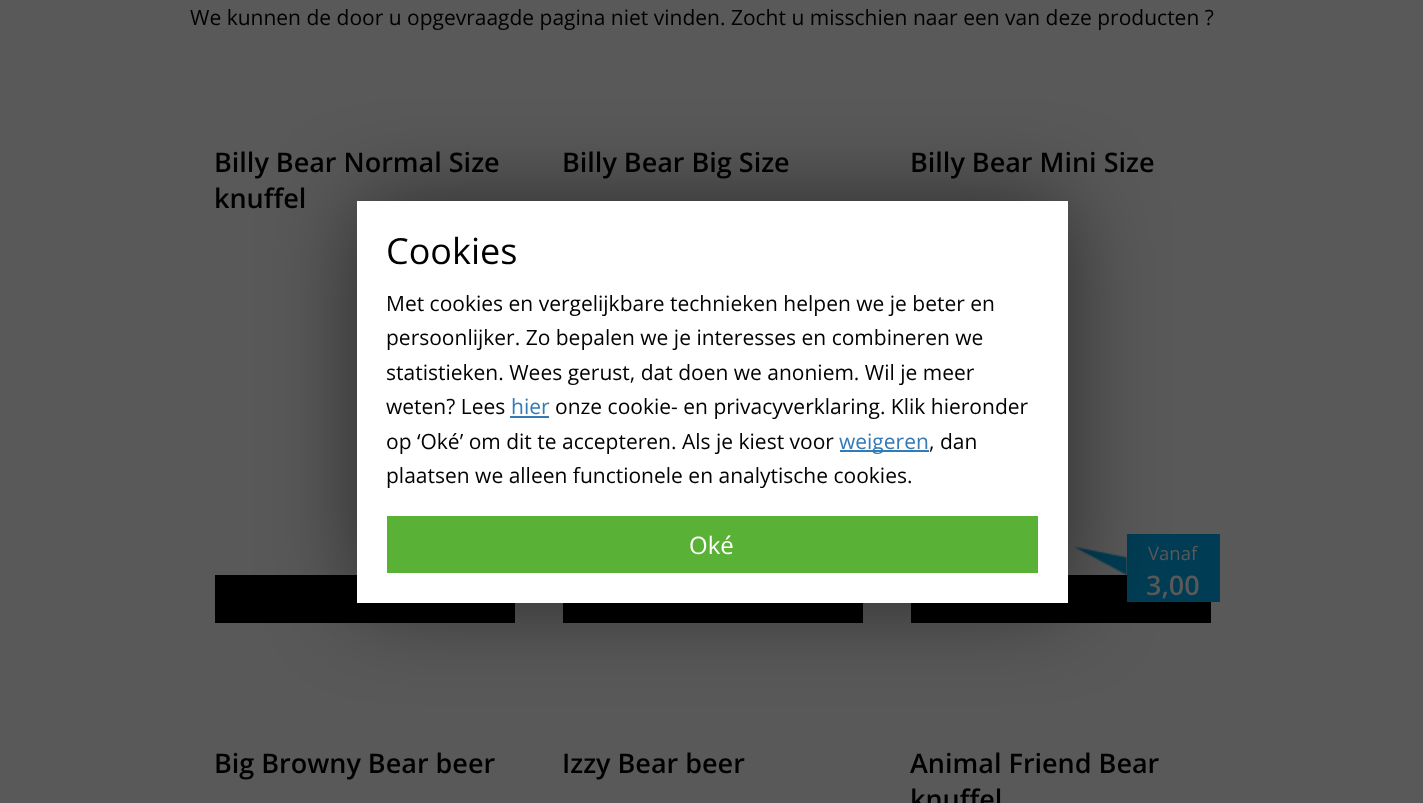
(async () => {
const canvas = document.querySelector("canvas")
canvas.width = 1423
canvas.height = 803
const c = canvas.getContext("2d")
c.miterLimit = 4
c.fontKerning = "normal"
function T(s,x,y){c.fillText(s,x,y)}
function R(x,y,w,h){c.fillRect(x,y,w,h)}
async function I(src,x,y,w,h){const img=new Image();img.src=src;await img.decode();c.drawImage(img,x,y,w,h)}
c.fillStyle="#595959"
R(0,0,1423,803)
c.font="21px Open Sans"
c.fillStyle="#000"
T("We kunnen de door u opgevraagde pagina niet vinden. Zocht u misschien naar een van deze producten ?",190,25)
c.font="600 27px Open Sans"
T("Billy Bear Normal Size",214,172)
T("knuffel",214,208)
R(215,575,300,48)
T("Billy Bear Big Size",562,172)
R(563,603,300,20)
T("Billy Bear Mini Size",910,172)
R(911,575,300,48)
c.fillStyle="#003d54"
R(1127,534,93,68)
await I("1.png",1074,546,53,29)
c.font="18.5px Open Sans"
c.fillStyle="#595959"
T("Vanaf",1148,560)
c.font="600 27px Open Sans"
T("3,00",1146,595)
c.fillStyle="#000"
T("Big Browny Bear beer",214,773)
T("Izzy Bear beer",562,773)
T("Animal Friend Bear",910,773)
T("knuffel",910,809)
c.fillStyle="#00000080"
c.filter="blur(45px)"
c.beginPath()
c.rect(357,201,711,402)
c.fill()
c.filter="none"
c.fillStyle="#fff"
R(357,201,711,402)
c.font="36px Open Sans"
c.fillStyle="#000"
T("Cookies",386,264)
c.font="21px Open Sans"
T("Met cookies en vergelijkbare technieken helpen we je beter en",386,311)
T("persoonlijker. Zo bepalen we je interesses en combineren we",386,345)
T("statistieken. Wees gerust, dat doen we anoniem. Wil je meer",386,380)
T("weten? Lees",386,414)
c.fillStyle="#337ab7"
T("hier",511,414)
R(510,416,39,2)
c.fillStyle="#000"
T("onze cookie- en privacyverklaring. Klik hieronder",555,414)
T("op ‘Oké’ om dit te accepteren. Als je kiest voor",386,449)
c.fillStyle="#337ab7"
R(840,450,89,2)
T("weigeren",839,449)
c.fillStyle="#000"
T(", dan",929,449)
T("plaatsen we alleen functionele en analytische cookies.",386,483)
c.fillStyle="#59b136"
R(387,516,651,57)
c.font="24px Open Sans"
c.fillStyle="#fff"
T("Oké",689,554)
})()
